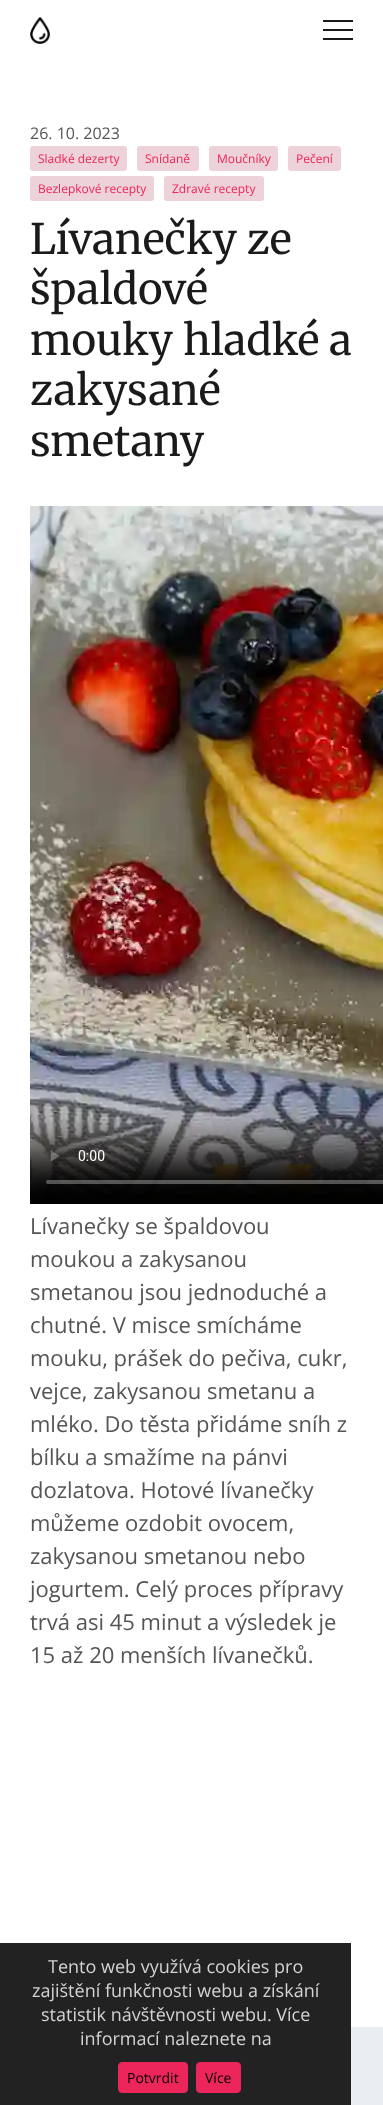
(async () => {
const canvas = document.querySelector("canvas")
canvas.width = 383
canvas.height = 2105
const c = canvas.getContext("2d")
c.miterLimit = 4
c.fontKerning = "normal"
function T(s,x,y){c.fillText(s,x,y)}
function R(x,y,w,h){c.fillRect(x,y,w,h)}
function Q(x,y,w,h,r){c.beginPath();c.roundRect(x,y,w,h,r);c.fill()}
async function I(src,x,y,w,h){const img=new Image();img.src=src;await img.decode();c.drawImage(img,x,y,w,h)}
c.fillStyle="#fff"
R(0,0,383,2105)
await I("1.png",30,17,20,27)
c.fillStyle="#191a1a"
R(323,20,30,2)
R(323,38,30,2)
R(323,29,30,2)
c.font="16px Open Sans"
c.fillStyle="#555"
T("26. 10. 2023",30,139)
c.fillStyle="#eed2d9"
Q(30,146,97,25,3)
c.font="12px Open Sans"
c.fillStyle="#ec255a"
T("Sladké dezerty",38,163)
c.fillStyle="#eed2d9"
Q(137,146,62,25,3)
c.fillStyle="#ec255a"
T("Snídaně",145,163)
c.fillStyle="#eed2d9"
Q(209,146,69,25,3)
c.fillStyle="#ec255a"
T("Moučníky",217,163)
c.fillStyle="#eed2d9"
Q(288,146,53,25,3)
c.fillStyle="#ec255a"
T("Pečení",296,163)
c.fillStyle="#eed2d9"
Q(30,176,124,25,3)
c.fillStyle="#ec255a"
T("Bezlepkové recepty",38,193)
c.fillStyle="#eed2d9"
Q(164,176,100,25,3)
c.fillStyle="#ec255a"
T("Zdravé recepty",172,193)
c.font="42px Merriweather"
c.fillStyle="#191a1a"
T("Lívanečky ze",30,254)
T("špaldové",30,304)
T("mouky hladké a",30,355)
T("zakysané",30,405)
T("smetany",30,456)
await I("2.png",30,506,353,698)
c.font="22px Open Sans"
c.fillStyle="#555"
T("Lívanečky se špaldovou",30,1234)
T("moukou a zakysanou",30,1267)
T("smetanou jsou jednoduché a",30,1300)
T("chutné. V misce smícháme",30,1333)
T("mouku, prášek do pečiva, cukr,",30,1366)
T("vejce, zakysanou smetanu a",30,1399)
T("mléko. Do těsta přidáme sníh z",30,1432)
T("bílku a smažíme na pánvi",30,1465)
T("dozlatova. Hotové lívanečky",30,1498)
T("můžeme ozdobit ovocem,",30,1531)
T("zakysanou smetanou nebo",30,1564)
T("jogurtem. Celý proces přípravy",30,1597)
T("trvá asi 45 minut a výsledek je",30,1630)
T("15 až 20 menších lívanečků.",30,1663)
c.fillStyle="#222"
R(0,1943,351,162)
c.font="18px Open Sans"
c.fillStyle="#d3d3d3"
T("Tento web využívá cookies pro",48,1973)
T("zajištění funkčnosti webu a získání",32,1997)
T("statistik návštěvnosti webu. Více",41,2021)
T("informací naleznete na",80,2045)
c.fillStyle="#ec255a"
c.beginPath()
c.roundRect(118.5,2062.5,69,30,3.5)
c.fill()
c.strokeStyle="#ec255a"
c.stroke()
c.font="14px Open Sans"
c.fillStyle="#000"
T("Potvrdit",127,2083)
c.fillStyle="#ec255a"
c.beginPath()
c.roundRect(196.5,2062.5,44,30,3.5)
c.fill()
c.stroke()
c.fillStyle="#000"
T("Více",205,2083)
c.fillStyle="#ebeef0"
R(351,2027,32,78)
})()
